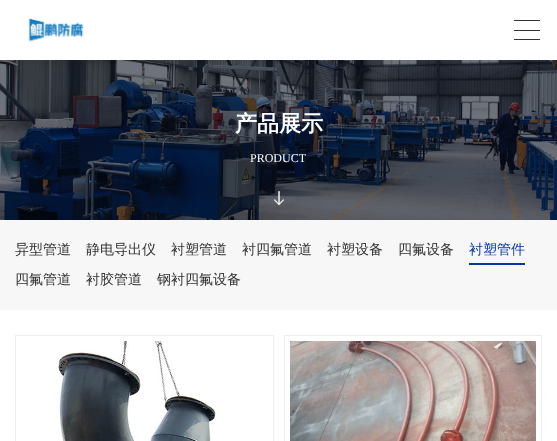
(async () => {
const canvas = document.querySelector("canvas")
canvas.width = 557
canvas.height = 441
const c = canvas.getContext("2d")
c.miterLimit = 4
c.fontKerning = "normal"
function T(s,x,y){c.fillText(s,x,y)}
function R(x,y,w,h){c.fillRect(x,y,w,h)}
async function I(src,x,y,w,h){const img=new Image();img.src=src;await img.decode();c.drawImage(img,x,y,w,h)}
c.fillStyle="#fff"
R(0,0,557,441)
await I("1.png",28,18,56,24)
c.fillStyle="#333"
R(514,20,26,1)
R(514,30,26,1)
R(514,39,26,1)
await I("2.png",0,60,557,160)
c.font="bold 22px WenQuanYi Zen Hei"
c.fillStyle="#fff"
T("产品展示",235,131)
c.font="12px Liberation Serif"
T("PRODUCT",250,162)
await I("3.png",274,191,10,14)
c.fillStyle="#f7f7f7"
R(0,220,557,90)
c.font="500 14px WenQuanYi Zen Hei"
c.fillStyle="#333"
T("异型管道",15,254)
T("静电导出仪",86,254)
T("衬塑管道",171,254)
T("衬四氟管道",242,254)
T("衬塑设备",327,254)
T("四氟设备",398,254)
c.fillStyle="#0639a2"
T("衬塑管件",469,254)
R(469,263,56,2)
c.fillStyle="#333"
T("四氟管道",15,284)
T("衬胶管道",86,284)
T("钢衬四氟设备",157,284)
c.strokeStyle="#eee"
c.strokeRect(15.5,335.5,258,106)
await I("4.png",58,341,158,100)
c.strokeRect(284.5,335.5,257,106)
await I("5.png",290,341,246,100)
})()
